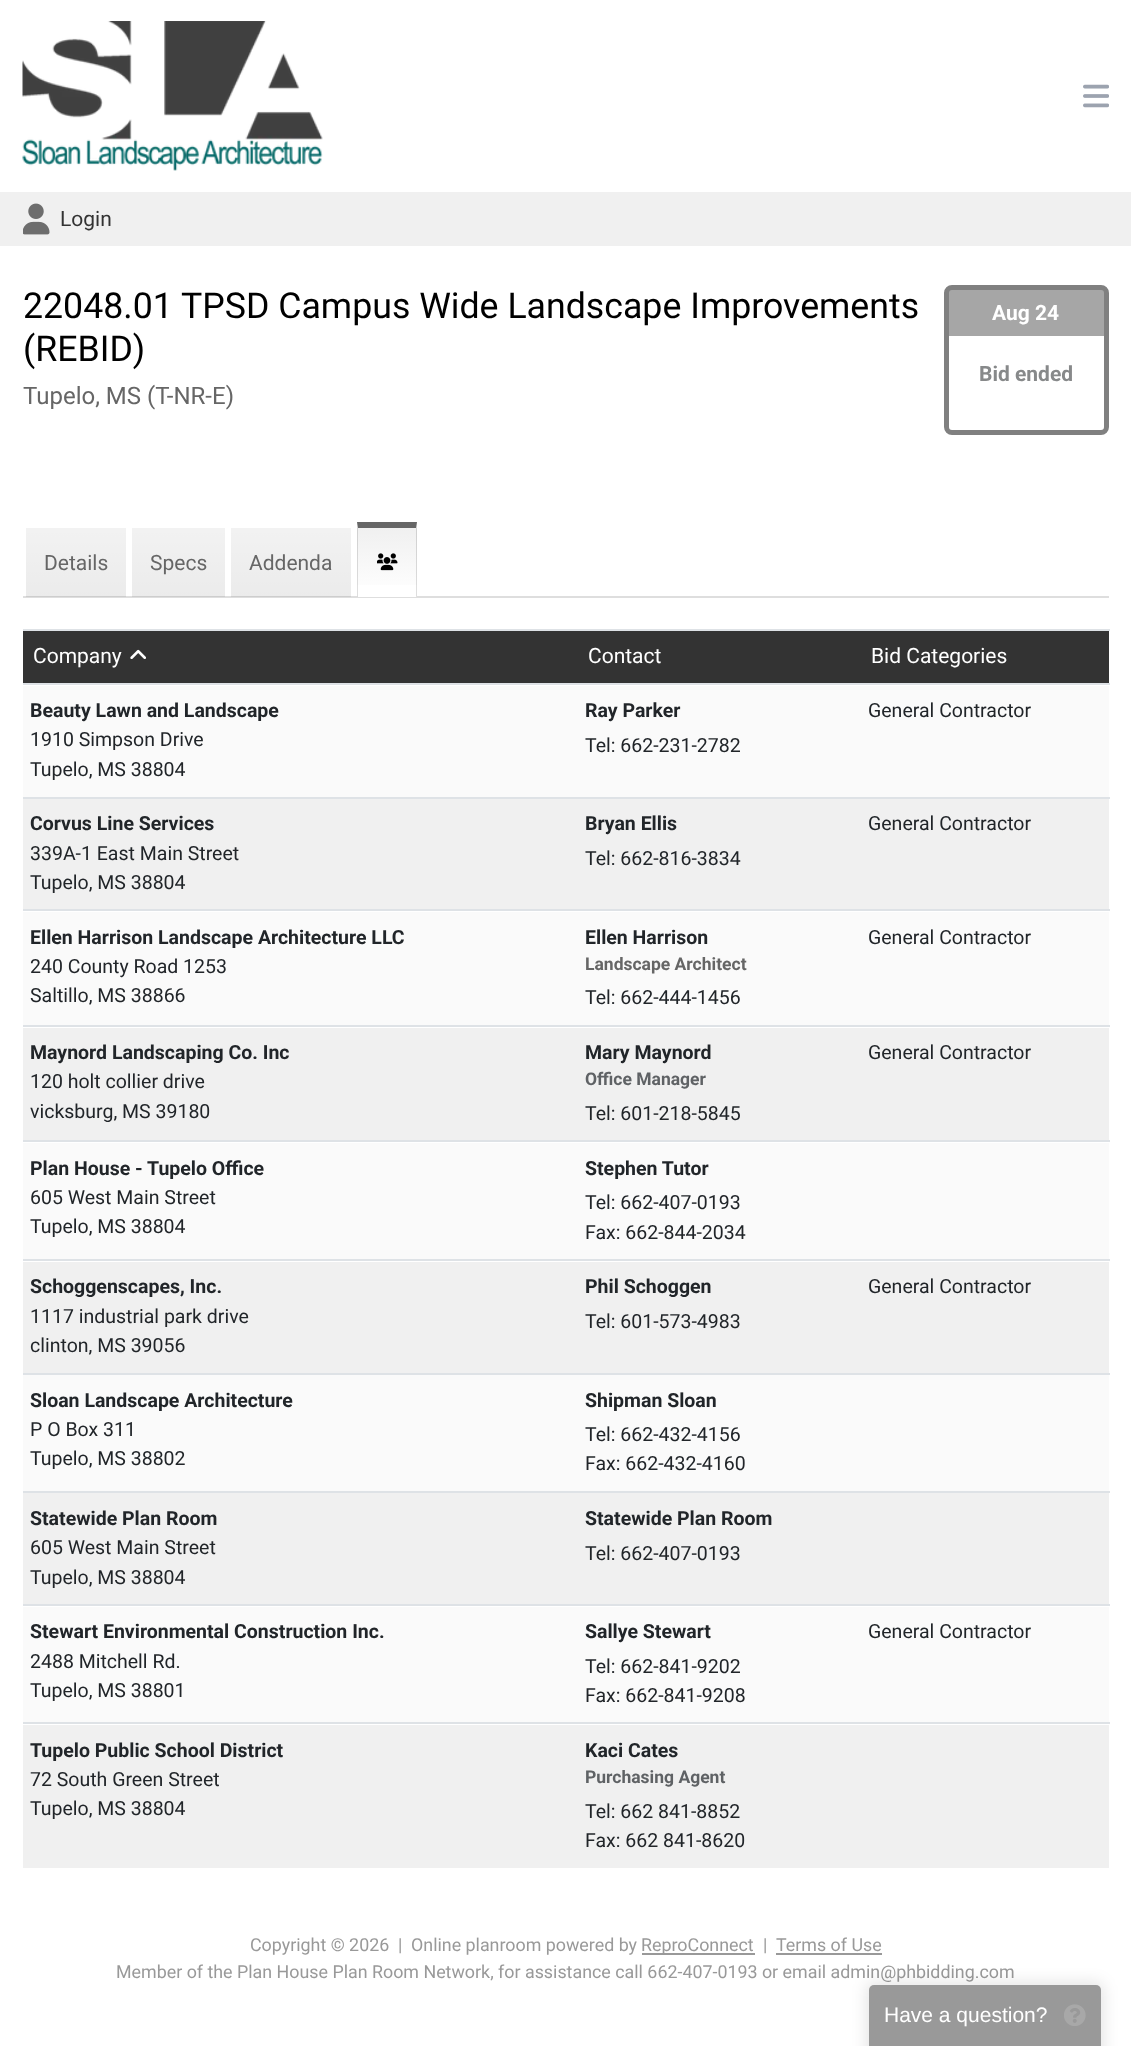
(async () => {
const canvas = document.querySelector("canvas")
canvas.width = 1131
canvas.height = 2046
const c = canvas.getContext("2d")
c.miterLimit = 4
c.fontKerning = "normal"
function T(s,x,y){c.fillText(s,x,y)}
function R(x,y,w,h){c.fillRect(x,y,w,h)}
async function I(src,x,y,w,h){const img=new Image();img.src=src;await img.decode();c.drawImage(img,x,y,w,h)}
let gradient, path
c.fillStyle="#fff"
R(0,0,1131,2046)
await I("1.png",22,21,301,150)
await I("2.png",1083,84,26,24)
c.fillStyle="#f0f0f0"
R(0,192,1131,54)
await I("3.png",23,203,27,32)
c.font="21px Roboto"
c.fillStyle="#333"
T("Login",60,226)
c.font="35.7px Roboto"
c.fillStyle="#000"
T("22048.01 TPSD Campus Wide Landscape Improvements",23,318)
T("(REBID)",23,361)
c.beginPath()
c.roundRect(946.5,287.5,160,145,5.5)
c.strokeStyle="#808080"
c.lineWidth=5
c.stroke()
c.fillStyle="#808080b3"
R(949,290,155,46)
c.font="bold 21px Roboto"
c.fillStyle="#fff"
T("Aug 24",992,320)
c.fillStyle="#87898a"
T("Bid ended",979,381)
c.font="24px Roboto"
c.fillStyle="#666"
T("Tupelo, MS (T-NR-E)",23,404)
c.fillStyle="#dedede"
R(23,596,1086,2)
gradient = c.createLinearGradient(76,528,76,597)
gradient.addColorStop(0,"#0000000d")
gradient.addColorStop(1,"#00000014")
c.fillStyle = gradient
R(26,528,100,69)
c.font="21px Roboto"
c.fillStyle="#666"
T("Details",44,570)
gradient = c.createLinearGradient(179,528,179,597)
gradient.addColorStop(0,"#0000000d")
gradient.addColorStop(1,"#00000014")
c.fillStyle = gradient
R(132,528,93,69)
c.fillStyle="#666"
T("Specs",150,570)
gradient = c.createLinearGradient(291,528,291,597)
gradient.addColorStop(0,"#0000000d")
gradient.addColorStop(1,"#00000014")
c.fillStyle = gradient
R(231,528,120,69)
c.fillStyle="#666"
T("Addenda",249,570)
gradient = c.createLinearGradient(387,528,387,596)
gradient.addColorStop(0,"#f0f0f0")
gradient.addColorStop(1,"#fff")
c.fillStyle = gradient
R(357,528,60,57)
gradient = c.createLinearGradient(387,596,387,663)
gradient.addColorStop(0,"#d1d1d1")
gradient.addColorStop(1,"#dedede")
c.fillStyle = gradient
R(357,596,60,1)
c.fillStyle="#666"
path = new Path2D("M357 522h60l-1 6h-58z")
c.fill(path)
c.fillStyle="#00000021"
path = new Path2D("M417 522v75l-1-1v-68z")
c.fill(path)
c.fillStyle="#fff"
path = new Path2D("M417 597h-60l1-1h58z")
c.fill(path)
c.fillStyle="#00000021"
path = new Path2D("M357 597v-75l1 6v68z")
c.fill(path)
await I("4.png",377,553,21,18)
c.fillStyle="#333"
R(23,631,1086,52)
c.fillStyle="#fff"
T("Company",33,663)
await I("5.png",130,649,16,10)
T("Contact",588,663)
c.fillStyle="#dee2e6"
R(23,629,1087,2)
c.fillStyle="#fff"
T("Bid Categories",871,663)
c.fillStyle="#fafafa"
R(23,686,1086,111)
c.font="bold 19.5px Roboto"
c.fillStyle="#212529"
T("Beauty Lawn and Landscape",30,717)
c.font="19.5px Roboto"
T("1910 Simpson Drive",30,746)
T("Tupelo, MS 38804",30,776)
c.font="bold 19.5px Roboto"
T("Ray Parker",585,717)
c.font="19.5px Roboto"
T("Tel: 662-231-2782",585,752)
c.fillStyle="#dee2e6"
R(23,683,1087,2)
c.fillStyle="#212529"
T("General Contractor",868,717)
c.fillStyle="#f0f0f0"
R(23,799,1086,110)
c.font="bold 19.5px Roboto"
c.fillStyle="#212529"
T("Corvus Line Services",30,830)
c.font="19.5px Roboto"
T("339A-1 East Main Street",30,860)
T("Tupelo, MS 38804",30,889)
c.font="bold 19.5px Roboto"
T("Bryan Ellis",585,830)
c.font="19.5px Roboto"
T("Tel: 662-816-3834",585,865)
c.fillStyle="#dee2e6"
R(23,797,1087,2)
c.fillStyle="#212529"
T("General Contractor",868,830)
c.fillStyle="#fafafa"
R(23,912,1086,113)
c.font="bold 19.5px Roboto"
c.fillStyle="#212529"
T("Ellen Harrison Landscape Architecture LLC",30,944)
c.font="19.5px Roboto"
T("240 County Road 1253",30,973)
T("Saltillo, MS 38866",30,1002)
c.font="bold 19.5px Roboto"
T("Ellen Harrison",585,944)
c.font="bold 17.5px Roboto"
c.fillStyle="#666"
T("Landscape Architect",585,970)
c.font="19.5px Roboto"
c.fillStyle="#212529"
T("Tel: 662-444-1456",585,1004)
c.fillStyle="#dee2e6"
R(23,909,1087,2)
c.fillStyle="#212529"
T("General Contractor",868,944)
c.fillStyle="#f0f0f0"
R(23,1028,1086,112)
c.font="bold 19.5px Roboto"
c.fillStyle="#212529"
T("Maynord Landscaping Co. Inc",30,1059)
c.font="19.5px Roboto"
T("120 holt collier drive",30,1088)
T("vicksburg, MS 39180",30,1118)
c.font="bold 19.5px Roboto"
T("Mary Maynord",585,1059)
c.font="bold 17.5px Roboto"
c.fillStyle="#5f6265"
T("Office Manager",585,1085)
c.font="19.5px Roboto"
c.fillStyle="#212529"
T("Tel: 601-218-5845",585,1120)
c.fillStyle="#dee2e6"
R(23,1025,1087,2)
c.fillStyle="#212529"
T("General Contractor",868,1059)
c.fillStyle="#dee2e6"
R(23,1140,1087,2)
c.fillStyle="#fafafa"
R(23,1143,1086,116)
c.font="bold 19.5px Roboto"
c.fillStyle="#212529"
T("Plan House - Tupelo Office",30,1175)
c.font="19.5px Roboto"
T("605 West Main Street",30,1204)
T("Tupelo, MS 38804",30,1233)
c.font="bold 19.5px Roboto"
T("Stephen Tutor",585,1175)
c.font="19.5px Roboto"
T("Tel: 662-407-0193",585,1209)
T("Fax: 662-844-2034",585,1239)
c.fillStyle="#f0f0f0"
R(23,1262,1086,111)
c.font="bold 19.5px Roboto"
c.fillStyle="#212529"
T("Schoggenscapes, Inc.",30,1293)
c.font="19.5px Roboto"
T("1117 industrial park drive",30,1323)
T("clinton, MS 39056",30,1352)
c.font="bold 19.5px Roboto"
T("Phil Schoggen",585,1293)
c.font="19.5px Roboto"
T("Tel: 601-573-4983",585,1328)
c.fillStyle="#dee2e6"
R(23,1259,1087,2)
c.fillStyle="#212529"
T("General Contractor",868,1293)
c.fillStyle="#dee2e6"
R(23,1373,1087,2)
c.fillStyle="#fafafa"
R(23,1375,1086,116)
c.font="bold 19.5px Roboto"
c.fillStyle="#212529"
T("Sloan Landscape Architecture",30,1407)
c.font="19.5px Roboto"
T("P O Box 311",30,1436)
T("Tupelo, MS 38802",30,1465)
c.font="bold 19.5px Roboto"
T("Shipman Sloan",585,1407)
c.font="19.5px Roboto"
T("Tel: 662-432-4156",585,1441)
T("Fax: 662-432-4160",585,1470)
c.fillStyle="#dee2e6"
R(23,1491,1087,2)
c.fillStyle="#f0f0f0"
R(23,1493,1086,111)
c.font="bold 19.5px Roboto"
c.fillStyle="#212529"
T("Statewide Plan Room",30,1525)
c.font="19.5px Roboto"
T("605 West Main Street",30,1554)
T("Tupelo, MS 38804",30,1584)
c.font="bold 19.5px Roboto"
T("Statewide Plan Room",585,1525)
c.font="19.5px Roboto"
T("Tel: 662-407-0193",585,1560)
c.fillStyle="#fafafa"
R(23,1607,1086,115)
c.font="bold 19.5px Roboto"
c.fillStyle="#212529"
T("Stewart Environmental Construction Inc.",30,1638)
c.font="19.5px Roboto"
T("2488 Mitchell Rd.",30,1668)
T("Tupelo, MS 38801",30,1697)
c.font="bold 19.5px Roboto"
T("Sallye Stewart",585,1638)
c.font="19.5px Roboto"
T("Tel: 662-841-9202",585,1673)
T("Fax: 662-841-9208",585,1702)
c.fillStyle="#dee2e6"
R(23,1604,1087,2)
c.fillStyle="#212529"
T("General Contractor",868,1638)
c.fillStyle="#dee2e6"
R(23,1722,1087,2)
c.fillStyle="#f0f0f0"
R(23,1725,1086,143)
c.font="bold 19.5px Roboto"
c.fillStyle="#212529"
T("Tupelo Public School District",30,1757)
c.font="19.5px Roboto"
T("72 South Green Street",30,1786)
T("Tupelo, MS 38804",30,1815)
c.font="bold 19.5px Roboto"
T("Kaci Cates",585,1757)
c.font="bold 17.5px Roboto"
c.fillStyle="#5f6265"
T("Purchasing Agent",585,1783)
c.font="19.5px Roboto"
c.fillStyle="#212529"
T("Tel: 662 841-8852",585,1818)
T("Fax: 662 841-8620",585,1847)
c.font="17.85px Roboto"
c.fillStyle="#999"
T("Copyright © 2026",250,1951)
T("|",398,1951)
T("Online planroom powered by",411,1951)
R(642,1953,113,2)
T("ReproConnect",641,1951)
T("|",763,1951)
T("Terms of Use",776,1951)
R(776,1953,106,2)
T("Member of the Plan House Plan Room Network, for assistance call 662-407-0193 or email admin@phbidding.com",116,1978)
c.fillStyle="#0000001a"
c.filter="blur(7.5px)"
c.beginPath()
c.roundRect(866,1982,238,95,8)
c.fill()
c.filter="none"
c.fillStyle="#999"
c.beginPath()
c.roundRect(869,1985,232,61,[5,5,0,0])
c.fill()
c.font="21px Liberation Sans"
c.fillStyle="#fff"
T("Have a question?",884,2022)
await I("6.png",1064,2004,22,22)
})()
